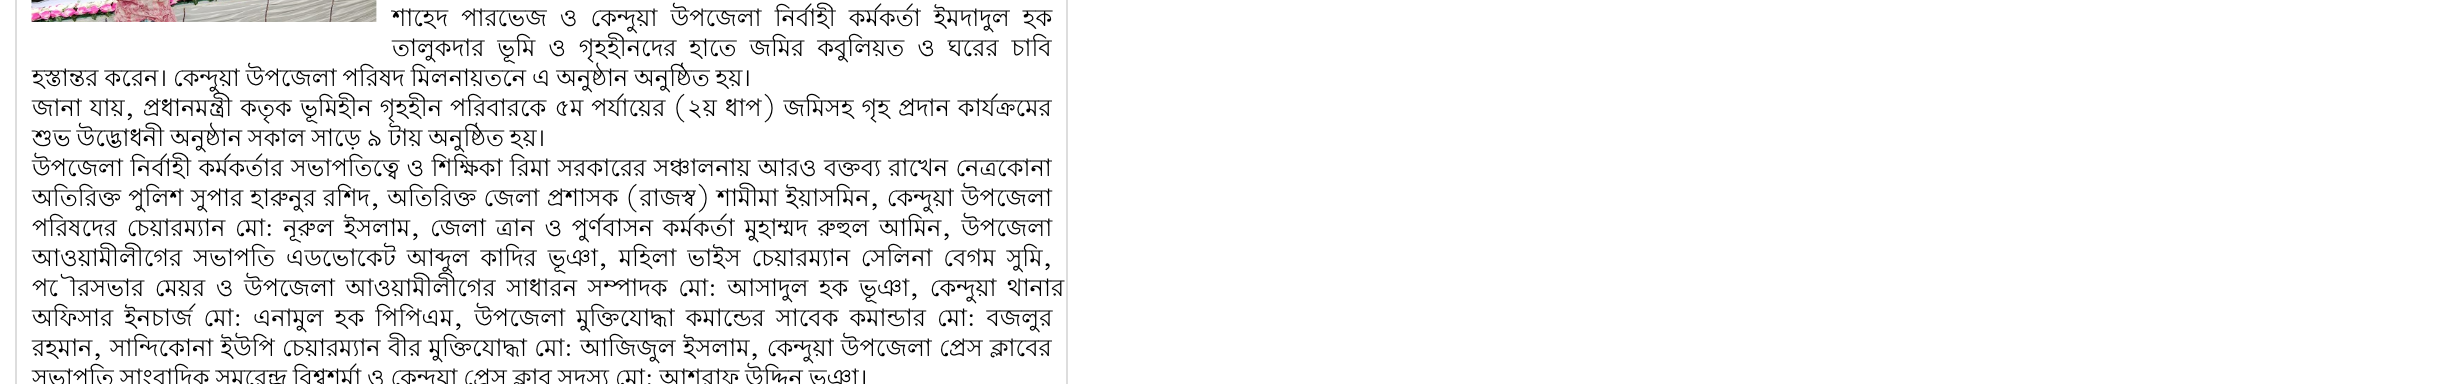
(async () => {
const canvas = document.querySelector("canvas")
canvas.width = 2464
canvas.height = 384
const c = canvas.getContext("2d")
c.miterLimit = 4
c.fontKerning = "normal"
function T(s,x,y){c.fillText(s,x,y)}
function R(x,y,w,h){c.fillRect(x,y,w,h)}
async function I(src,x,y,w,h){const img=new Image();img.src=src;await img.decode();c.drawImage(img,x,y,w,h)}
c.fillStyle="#fff"
R(0,0,2464,384)
c.strokeStyle="#ddd"
c.lineWidth=2
c.strokeRect(16,-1,1051,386)
await I("1.png",31,0,346,22)
c.wordSpacing="6.5px"
c.font="24px Lohit Bengali"
c.fillStyle="#000"
T("শাহেদ পারভেজ ও কেন্দুয়া উপজেলা নির্বাহী কর্মকর্তা ইমদাদুল হক",392,26)
c.wordSpacing="6.25px"
T("তালুকদার ভূমি ও গৃহহীনদের হাতে জমির কবুলিয়ত ও ঘরের চাবি",392,56)
c.wordSpacing="-0.75px"
T("হস্তান্তর করেন। কেন্দুয়া উপজেলা পরিষদ মিলনায়তনে এ অনুষ্ঠান অনুষ্ঠিত হয়।",32,86)
c.wordSpacing="1.4px"
T("জানা যায়, প্রধানমন্ত্রী কতৃক ভূমিহীন গৃহহীন পরিবারকে ৫ম পর্যায়ের (২য় ধাপ) জমিসহ গৃহ প্রদান কার্যক্রমের",32,116)
c.wordSpacing="-0.75px"
T("শুভ উদ্ভোধনী অনুষ্ঠান সকাল সাড়ে ৯ টায় অনুষ্ঠিত হয়।",32,146)
c.wordSpacing="0.6px"
T("উপজেলা নির্বাহী কর্মকর্তার সভাপতিত্বে ও শিক্ষিকা রিমা সরকারের সঞ্চালনায় আরও বক্তব্য রাখেন নেত্রকোনা",32,176)
T("অতিরিক্ত পুলিশ সুপার হারুনুর রশিদ, অতিরিক্ত জেলা প্রশাসক (রাজস্ব) শামীমা ইয়াসমিন, কেন্দুয়া উপজেলা",32,206)
c.wordSpacing="3.1px"
T("পরিষদের চেয়ারম্যান মো: নূরুল ইসলাম, জেলা ত্রান ও পুর্ণবাসন কর্মকর্তা মুহাম্মদ রুহুল আমিন, উপজেলা",32,236)
c.wordSpacing="4.25px"
T("আওয়ামীলীগের সভাপতি এডভোকেট আব্দুল কাদির ভূঞা, মহিলা ভাইস চেয়ারম্যান সেলিনা বেগম সুমি,",32,266)
c.wordSpacing="3.9px"
T("পৌরসভার মেয়র ও উপজেলা আওয়ামীলীগের সাধারন সম্পাদক মো: আসাদুল হক ভূঞা, কেন্দুয়া থানার",32,296)
c.wordSpacing="4.4px"
T("অফিসার ইনচার্জ মো: এনামুল হক পিপিএম, উপজেলা মুক্তিযোদ্ধা কমান্ডের সাবেক কমান্ডার মো: বজলুর",32,326)
c.wordSpacing="0.6px"
T("রহমান, সান্দিকোনা ইউপি চেয়ারম্যান বীর মুক্তিযোদ্ধা মো: আজিজুল ইসলাম, কেন্দুয়া উপজেলা প্রেস ক্লাবের",32,356)
c.wordSpacing="-0.75px"
T("সভাপতি সাংবাদিক সমরেন্দ্র বিশ্বশর্মা ও কেন্দুয়া প্রেস ক্লাব সদস্য মো: আশরাফ উদ্দিন ভূঞা।",32,386)
})()
